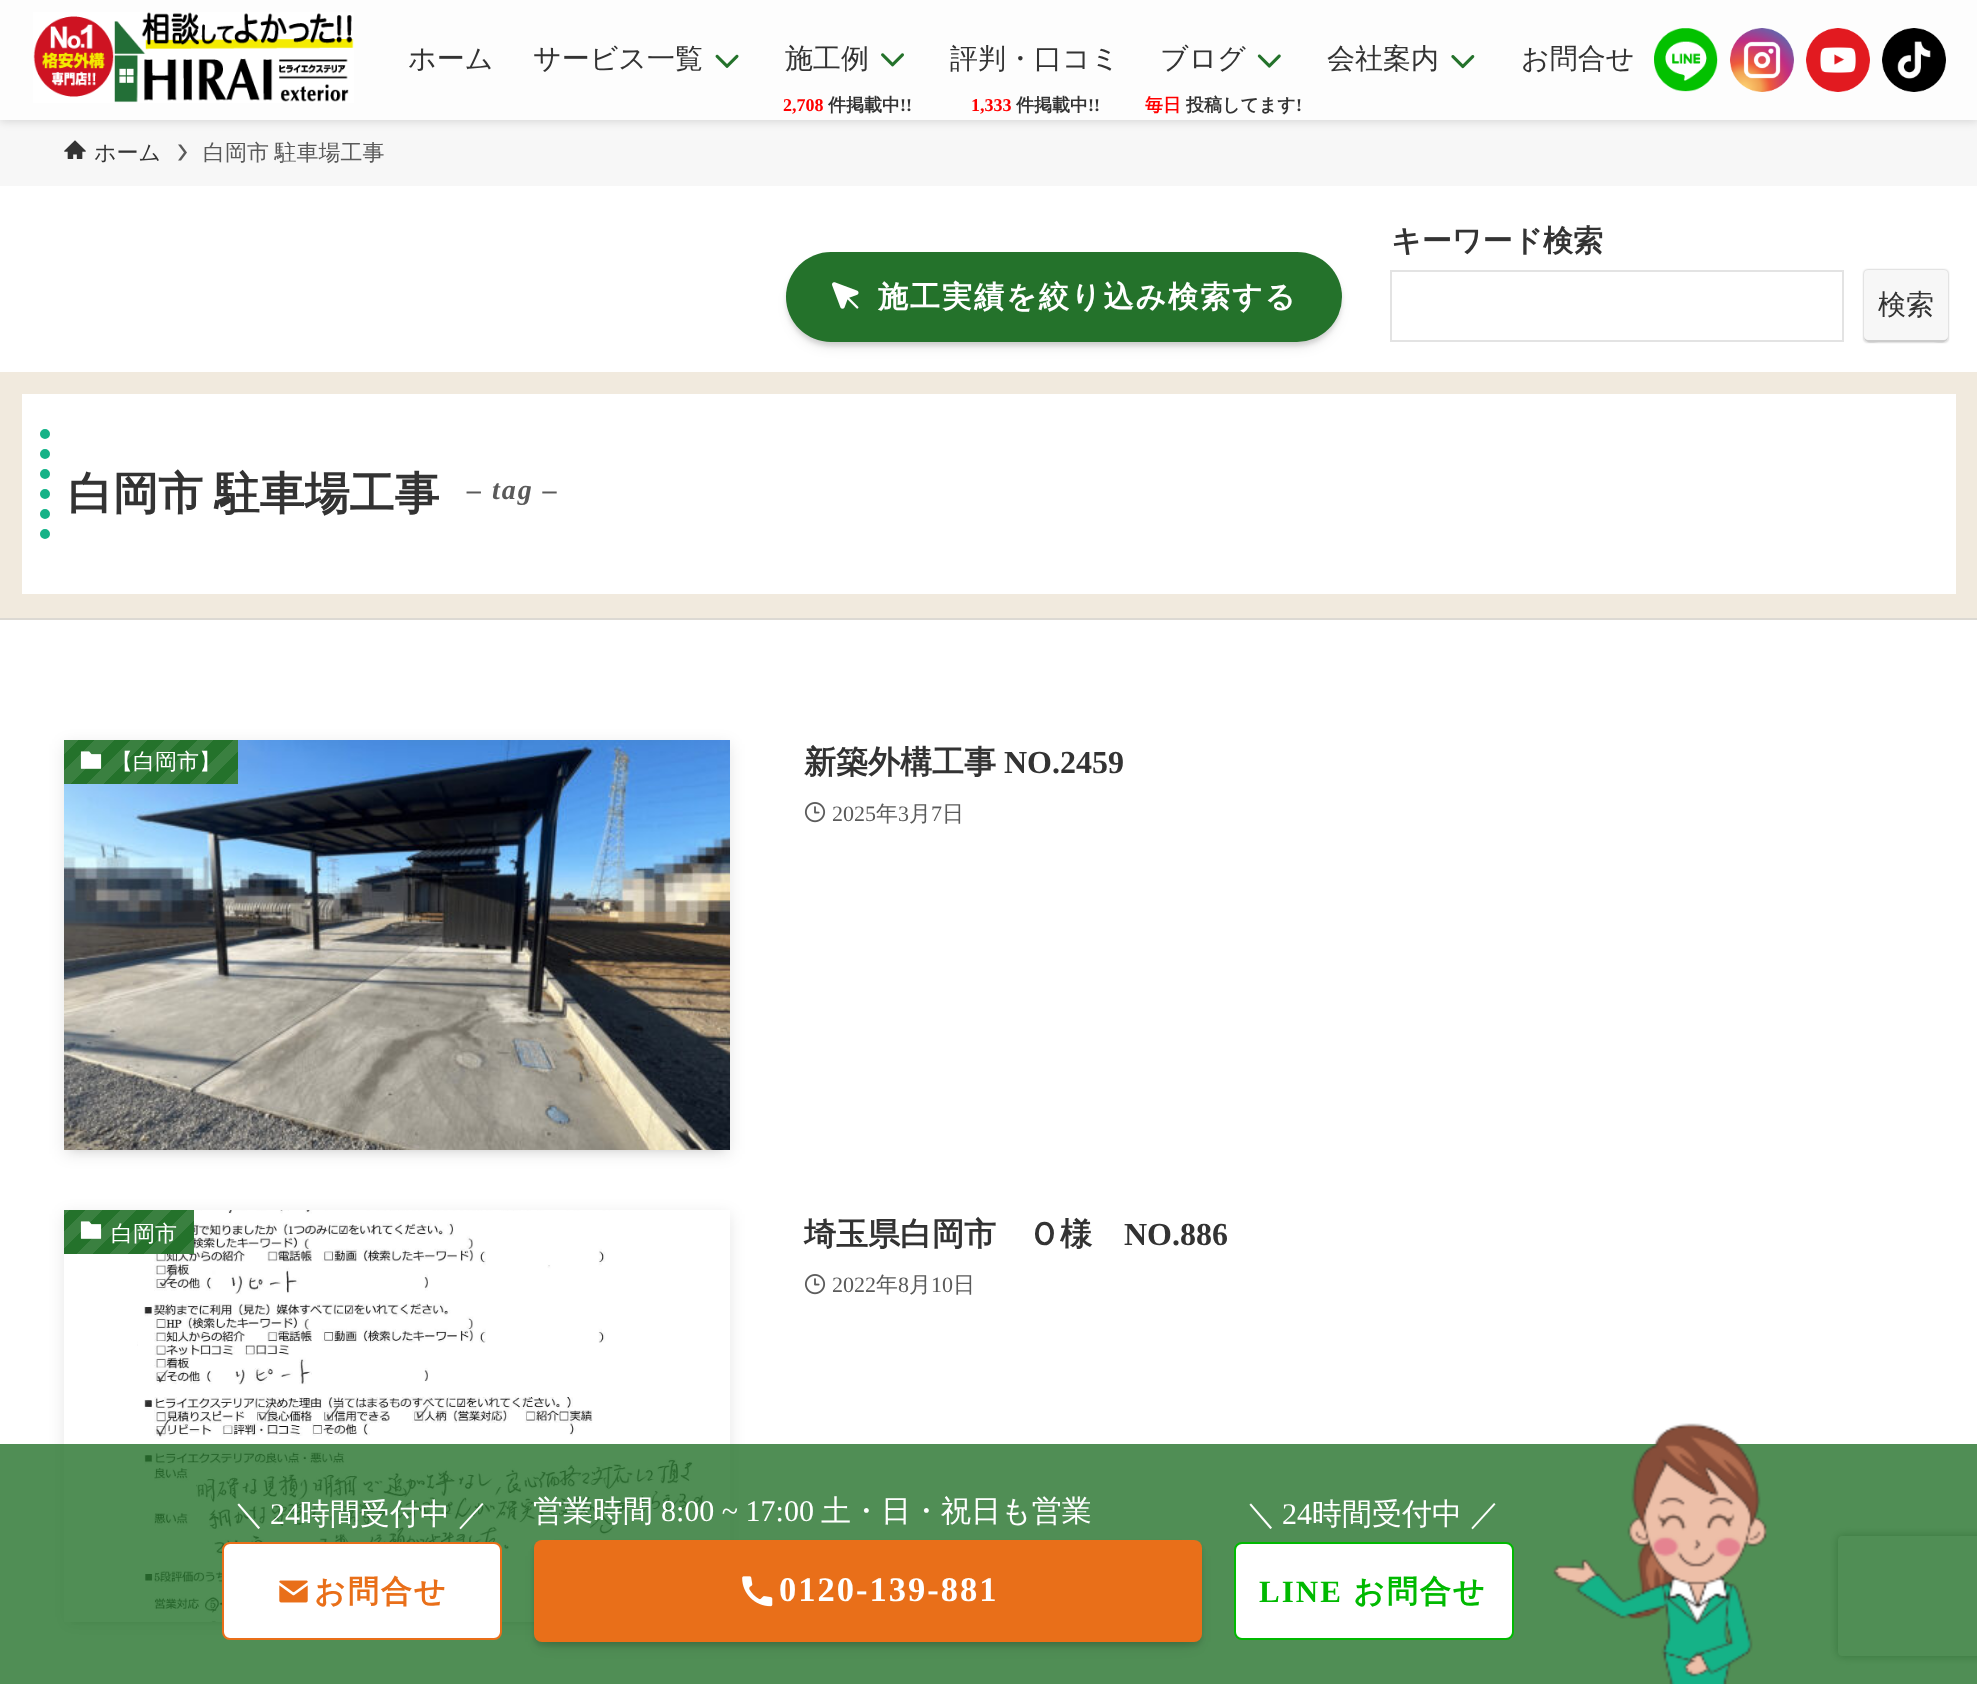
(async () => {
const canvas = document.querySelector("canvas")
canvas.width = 1977
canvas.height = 1684
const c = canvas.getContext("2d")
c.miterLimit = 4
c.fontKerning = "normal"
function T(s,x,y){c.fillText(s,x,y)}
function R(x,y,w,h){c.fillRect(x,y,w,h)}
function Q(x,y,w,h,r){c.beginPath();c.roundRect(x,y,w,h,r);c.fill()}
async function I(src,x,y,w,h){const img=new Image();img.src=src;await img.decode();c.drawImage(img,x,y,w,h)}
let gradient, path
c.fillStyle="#fff"
R(0,0,1977,1684)
c.fillStyle="#f7f7f7"
R(0,120,1977,66)
c.fillStyle="#0000001f"
c.filter="blur(4px)"
c.beginPath()
c.rect(0,2,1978,120)
c.fill()
c.filter="none"
c.fillStyle="#fdfdfd"
R(0,0,1977,120)
await I("1.png",33,12,321,91)
c.font="500 28px WenQuanYi Zen Hei"
c.fillStyle="#333"
T("ホーム",408,68)
T("サービス一覧",533,68)
await I("2.png",715,54,24,14)
T("施工例",785,68)
await I("3.png",881,53,23,14)
c.font="bold 18px Liberation Serif"
c.fillStyle="#f00"
T("2,708",783,111)
c.font="bold 18px WenQuanYi Zen Hei"
c.fillStyle="#333"
T("件掲載中",828,111)
c.font="bold 18px Liberation Serif"
T("!!",900,111)
c.font="500 28px WenQuanYi Zen Hei"
T("評判・口コミ",950,68)
c.font="bold 18px Liberation Serif"
c.fillStyle="#f00"
T("1,333",971,111)
c.font="bold 18px WenQuanYi Zen Hei"
c.fillStyle="#333"
T("件掲載中",1016,111)
c.font="bold 18px Liberation Serif"
T("!!",1088,111)
c.font="500 28px WenQuanYi Zen Hei"
T("ブログ",1160,68)
await I("4.png",1257,54,24,14)
c.font="bold 18px WenQuanYi Zen Hei"
c.fillStyle="#f00"
T("毎日",1145,111)
c.fillStyle="#333"
T("投稿してます",1186,111)
c.font="bold 18px Liberation Serif"
T("!",1296,111)
c.font="500 28px WenQuanYi Zen Hei"
T("会社案内",1327,68)
await I("5.png",1451,55,24,14)
T("お問合せ",1521,68)
await I("6.png",1654,28,64,64)
await I("7.png",1730,28,64,64)
await I("8.png",1806,28,64,64)
await I("9.png",1882,28,64,64)
await I("10.png",64,140,22,19)
c.font="500 22px WenQuanYi Zen Hei"
T("ホーム",94,160)
c.fillStyle="#5a5a5a"
path = new Path2D("M181 144.5h-3l6 8l-6 8h3l6-8z")
c.fill(path)
c.wordSpacing="-1px"
T("白岡市 駐車場工事",203,160)
c.fillStyle="#00000033"
c.filter="blur(8px)"
c.beginPath()
c.roundRect(794,268,540,74,37)
c.fill()
c.filter="none"
c.fillStyle="#0000001a"
c.filter="blur(2px)"
c.beginPath()
c.roundRect(786,256,556,90,45)
c.fill()
c.filter="none"
c.fillStyle="#24722b"
Q(786,252,556,90,45)
await I("11.png",832,282,27,27)
c.letterSpacing="2px"
c.wordSpacing="0px"
c.font="bold 30px WenQuanYi Zen Hei"
c.fillStyle="#fff"
T("施工実績を絞り込み検索する",878,307)
c.letterSpacing="0px"
c.fillStyle="#333"
T("キーワード検索",1391,251)
c.strokeStyle="#e3e3e3"
c.lineWidth=2
c.strokeRect(1391,271,452,70)
c.fillStyle="#aaa"
c.filter="blur(1px)"
c.beginPath()
c.roundRect(1864,270,84,72,4)
c.fill()
c.filter="none"
c.fillStyle="#f7f7f7"
Q(1864,270,84,72,4)
c.fillStyle="#ccc"
path = new Path2D("M1864 336c0 9 9 6 17 6h50c8 0 17 3 17-6c0 2-2 4-4 4h-76c-2 0-4-2-4-4z")
c.fill(path)
c.font="500 28px WenQuanYi Zen Hei"
c.fillStyle="#333"
T("検索",1878,314)
c.fillStyle="#f1eade"
R(0,372,1977,246)
c.fillStyle="#dcd9d3"
R(0,618,1977,2)
c.fillStyle="#fff"
R(22,394,1934,200)
path = new Path2D("M45 434v120")
c.strokeStyle="#15b287"
c.lineWidth=10
c.lineCap="round"
c.setLineDash([0,20])
c.stroke(path)
c.wordSpacing="-2px"
c.font="bold 45px WenQuanYi Zen Hei"
c.fillStyle="#333"
T("白岡市 駐車場工事",68,509)
c.letterSpacing="2px"
c.wordSpacing="0px"
c.font="italic bold 28px Liberation Serif"
c.fillStyle="#5a5a5a"
T("– tag –",467,499)
c.fillStyle="#0000001a"
c.filter="blur(4px)"
c.beginPath()
c.rect(72,756,650,394)
c.fill()
c.filter="none"
c.filter="blur(8px)"
c.beginPath()
c.rect(64,744,666,410)
c.fill()
c.filter="none"
await I("12.png",64,740,666,410)
gradient = c.createLinearGradient(206,817,87,698)
gradient.addColorStop(0,"#3a8040")
gradient.addColorStop(.07,"#3a8040")
gradient.addColorStop(.07,"#24722b")
gradient.addColorStop(.14,"#24722b")
gradient.addColorStop(.14,"#3a8040")
gradient.addColorStop(.21,"#3a8040")
gradient.addColorStop(.21,"#24722b")
gradient.addColorStop(.29,"#24722b")
gradient.addColorStop(.29,"#3a8040")
gradient.addColorStop(.36,"#3a8040")
gradient.addColorStop(.36,"#24722b")
gradient.addColorStop(.43,"#24722b")
gradient.addColorStop(.43,"#3a8040")
gradient.addColorStop(.5,"#3a8040")
gradient.addColorStop(.5,"#24722b")
gradient.addColorStop(.57,"#24722b")
gradient.addColorStop(.57,"#3a8040")
gradient.addColorStop(.64,"#3a8040")
gradient.addColorStop(.64,"#24722b")
gradient.addColorStop(.71,"#24722b")
gradient.addColorStop(.71,"#3a8040")
gradient.addColorStop(.79,"#3a8040")
gradient.addColorStop(.79,"#24722b")
gradient.addColorStop(.86,"#24722b")
gradient.addColorStop(.86,"#3a8040")
gradient.addColorStop(.93,"#3a8040")
gradient.addColorStop(.93,"#24722b")
gradient.addColorStop(1,"#24722b")
c.fillStyle = gradient
R(64,740,174,44)
await I("13.png",80,751,22,18)
c.letterSpacing="0px"
c.font="500 22px WenQuanYi Zen Hei"
c.fillStyle="#fff"
T("【白岡市】",111,769)
c.font="bold 32px WenQuanYi Zen Hei"
c.fillStyle="#333"
T("新築外構工事",804,773)
c.font="bold 32px Liberation Serif"
T("NO.2459",1004,773)
await I("14.png",804,802,22,21)
c.font="22px Liberation Serif"
c.fillStyle="#5a5a5a"
T("2025",832,821)
c.font="500 22px WenQuanYi Zen Hei"
T("年",876,821)
c.font="22px Liberation Serif"
T("3",898,821)
c.font="500 22px WenQuanYi Zen Hei"
T("月",909,821)
c.font="22px Liberation Serif"
T("7",931,821)
c.font="500 22px WenQuanYi Zen Hei"
T("日",942,821)
c.save()
c.beginPath()
c.rect(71,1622,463,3)
c.clip()
c.fillStyle="#0000001a"
c.filter="blur(4px)"
c.beginPath()
c.rect(72,1226,650,396)
c.fill()
c.filter="none"
c.restore()
c.save()
path = new Path2D("M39 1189h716v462h-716zm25 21h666v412h-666z")
c.clip(path,"evenodd")
c.fillStyle="#0000001a"
c.filter="blur(8px)"
c.beginPath()
c.rect(64,1214,666,412)
c.fill()
c.filter="none"
c.restore()
await I("15.png",137,1210,568,412)
gradient = c.createLinearGradient(173,1276,71,1174)
gradient.addColorStop(0,"#3a8040")
gradient.addColorStop(.08,"#3a8040")
gradient.addColorStop(.08,"#24722b")
gradient.addColorStop(.17,"#24722b")
gradient.addColorStop(.17,"#3a8040")
gradient.addColorStop(.25,"#3a8040")
gradient.addColorStop(.25,"#24722b")
gradient.addColorStop(.33,"#24722b")
gradient.addColorStop(.33,"#3a8040")
gradient.addColorStop(.42,"#3a8040")
gradient.addColorStop(.42,"#24722b")
gradient.addColorStop(.5,"#24722b")
gradient.addColorStop(.5,"#3a8040")
gradient.addColorStop(.58,"#3a8040")
gradient.addColorStop(.58,"#24722b")
gradient.addColorStop(.67,"#24722b")
gradient.addColorStop(.67,"#3a8040")
gradient.addColorStop(.75,"#3a8040")
gradient.addColorStop(.75,"#24722b")
gradient.addColorStop(.83,"#24722b")
gradient.addColorStop(.83,"#3a8040")
gradient.addColorStop(.92,"#3a8040")
gradient.addColorStop(.92,"#24722b")
gradient.addColorStop(1,"#24722b")
c.fillStyle = gradient
R(64,1210,130,44)
await I("16.png",80,1221,22,18)
c.fillStyle="#fff"
T("白岡市",111,1241)
c.font="bold 32px WenQuanYi Zen Hei"
c.fillStyle="#333"
T("埼玉県白岡市　Ｏ様",804,1245)
c.font="bold 32px Liberation Serif"
T("NO.886",1124,1245)
await I("14.png",804,1274,22,21)
c.font="22px Liberation Serif"
c.fillStyle="#5a5a5a"
T("2022",832,1292)
c.font="500 22px WenQuanYi Zen Hei"
T("年",876,1292)
c.font="22px Liberation Serif"
T("8",898,1292)
c.font="500 22px WenQuanYi Zen Hei"
T("月",909,1292)
c.font="22px Liberation Serif"
T("10",931,1292)
c.font="500 22px WenQuanYi Zen Hei"
T("日",953,1292)
c.save()
path = new Path2D("M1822 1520h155v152h-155zm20 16h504c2 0 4 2 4 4v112c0 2-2 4-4 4h-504c-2 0-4-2-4-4v-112c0-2 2-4 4-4z")
c.clip(path,"evenodd")
c.fillStyle="#808080"
c.filter="blur(5px)"
c.beginPath()
c.roundRect(1838,1536,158,120,4)
c.fill()
c.filter="none"
c.restore()
c.fillStyle="#24722bcc"
R(0,1444,1977,240)
c.font="500 30px WenQuanYi Zen Hei"
c.fillStyle="#fff"
T("＼",234,1524)
c.font="30px Liberation Serif"
T("24",270,1524)
c.wordSpacing="-1px"
c.font="500 30px WenQuanYi Zen Hei"
T("時間受付中 ／",300,1524)
c.beginPath()
c.roundRect(223,1543,278,96,7)
c.fill()
c.strokeStyle="#e96f19"
c.lineWidth=2
c.setLineDash([])
c.stroke()
await I("17.png",279,1580,29,23)
c.letterSpacing="2px"
c.wordSpacing="0px"
c.font="bold 31px WenQuanYi Zen Hei"
c.fillStyle="#e96f19"
T("お問合せ",314,1602)
c.letterSpacing="0px"
c.font="500 30px WenQuanYi Zen Hei"
c.fillStyle="#fff"
T("営業時間",533,1521)
c.font="30px Liberation Serif"
T("8:00 ~ 17:00",661,1521)
c.font="500 30px WenQuanYi Zen Hei"
T("土・日・祝日も営業",821,1521)
c.fillStyle="#00000033"
c.filter="blur(8px)"
c.beginPath()
c.rect(542,1556,652,86)
c.fill()
c.filter="none"
c.fillStyle="#0000001a"
c.filter="blur(2px)"
c.beginPath()
c.roundRect(534,1544,668,102,8)
c.fill()
c.filter="none"
c.fillStyle="#e96f19"
Q(534,1540,668,102,8)
await I("18.png",742,1576,31,31)
c.letterSpacing="2px"
c.font="bold 34.5px Liberation Serif"
c.fillStyle="#fff"
T("0120-139-881",779,1601)
c.letterSpacing="0px"
c.font="500 30px WenQuanYi Zen Hei"
T("＼",1246,1524)
c.font="30px Liberation Serif"
T("24",1282,1524)
c.wordSpacing="-1px"
c.font="500 30px WenQuanYi Zen Hei"
T("時間受付中 ／",1312,1524)
c.beginPath()
c.roundRect(1235,1543,278,96,7)
c.fill()
c.strokeStyle="#00b900"
c.stroke()
c.letterSpacing="2px"
c.wordSpacing="0px"
c.font="bold 31px Liberation Serif"
c.fillStyle="#00b900"
T("LINE",1259,1602)
c.font="bold 31px WenQuanYi Zen Hei"
T("お問合せ",1353,1602)
await I("19.png",1553,1423,214,261)
})()
